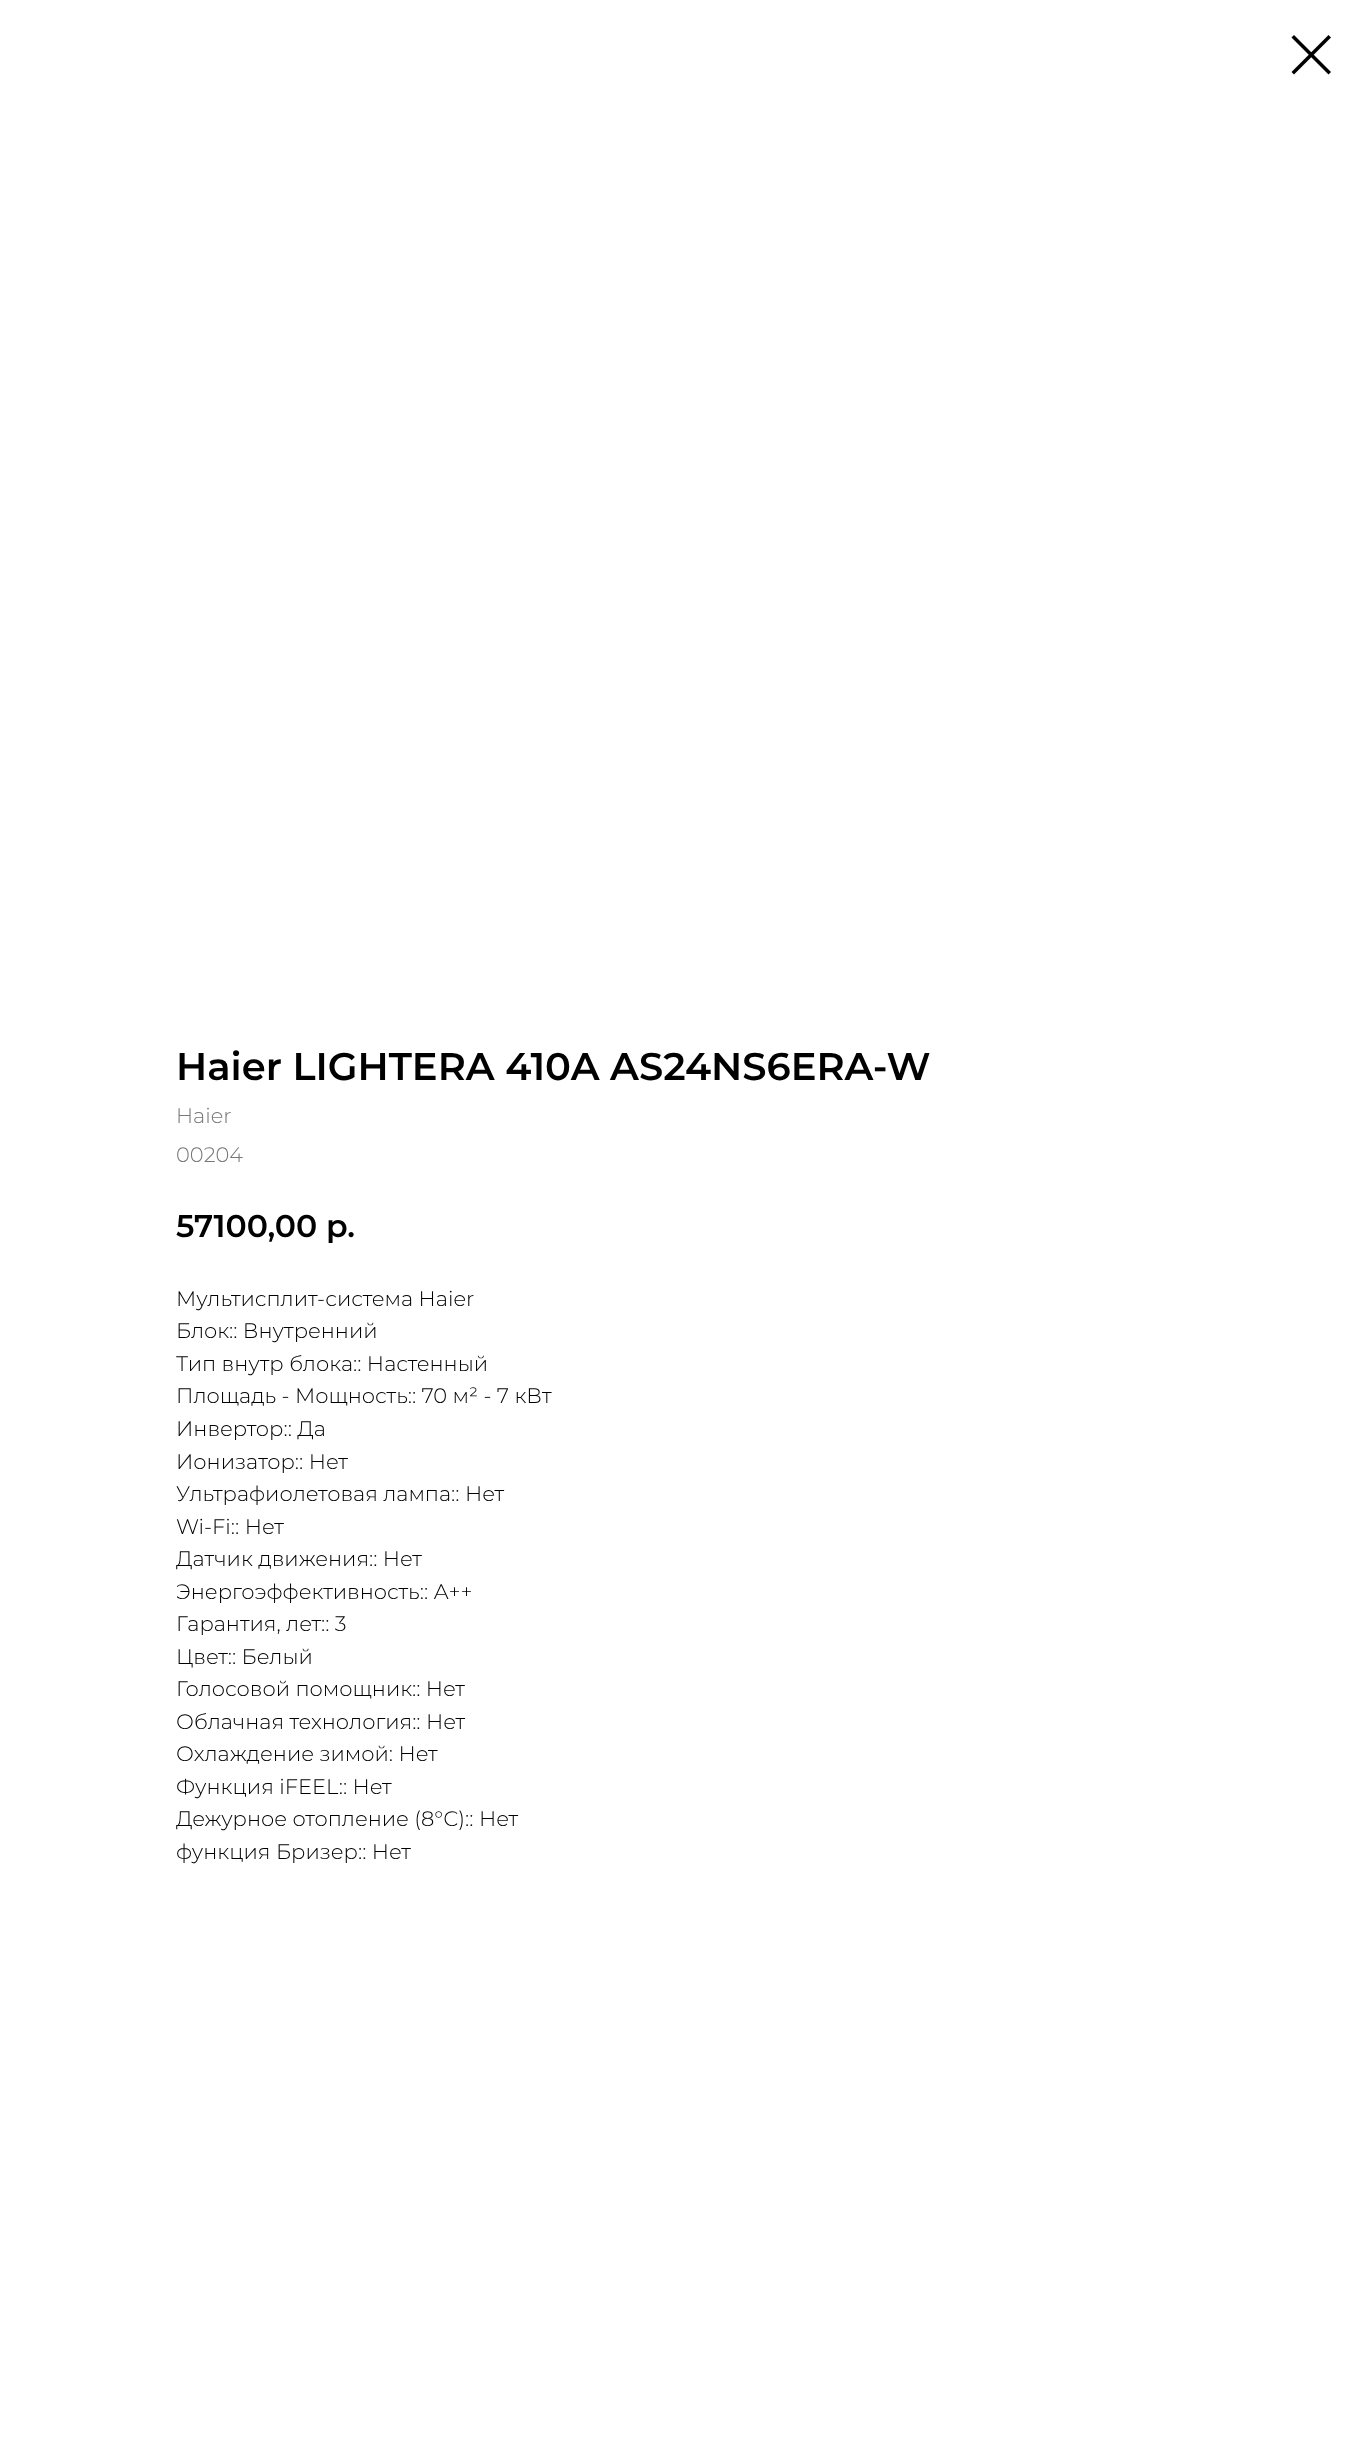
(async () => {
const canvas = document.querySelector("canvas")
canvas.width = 1366
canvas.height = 2444
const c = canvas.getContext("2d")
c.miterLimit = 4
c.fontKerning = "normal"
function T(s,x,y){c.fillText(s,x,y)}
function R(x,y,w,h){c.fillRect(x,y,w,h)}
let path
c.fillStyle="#fff"
R(0,0,1366,2444)
c.fillStyle="#000"
path = new Path2D("M1291.5 37.5l2.5-2.5l37 37l-2.5 2.5z")
c.fill(path,"evenodd")
path = new Path2D("M1328.5 35l2.5 2.5l-37 37l-2.5-2.5z")
c.fill(path,"evenodd")
c.font="600 38.5px Montserrat"
T("Haier LIGHTERA 410A AS24NS6ERA-W",176,1080)
c.font="300 21px Montserrat"
c.fillStyle="#777"
T("Haier",176,1123)
T("00204",176,1162)
c.font="600 31.5px Montserrat"
c.fillStyle="#000"
T("57100,00 р.",176,1237)
c.font="300 21px Montserrat"
T("Мультисплит-система Haier",176,1306)
T("Блок:: Внутренний",176,1338)
T("Тип внутр блока:: Настенный",176,1371)
T("Площадь - Мощность:: 70 м² - 7 кВт",176,1403)
T("Инвертор:: Да",176,1436)
T("Ионизатор:: Нет",176,1469)
T("Ультрафиолетовая лампа:: Нет",176,1501)
T("Wi-Fi:: Нет",176,1534)
T("Датчик движения:: Нет",176,1566)
T("Энергоэффективность:: А++",176,1599)
T("Гарантия, лет:: 3",176,1631)
T("Цвет:: Белый",176,1664)
T("Голосовой помощник:: Нет",176,1696)
T("Облачная технология:: Нет",176,1729)
T("Охлаждение зимой: Нет",176,1761)
T("Функция iFEEL:: Нет",176,1794)
T("Дежурное отопление (8°С):: Нет",176,1826)
T("функция Бризер:: Нет",176,1859)
})()
